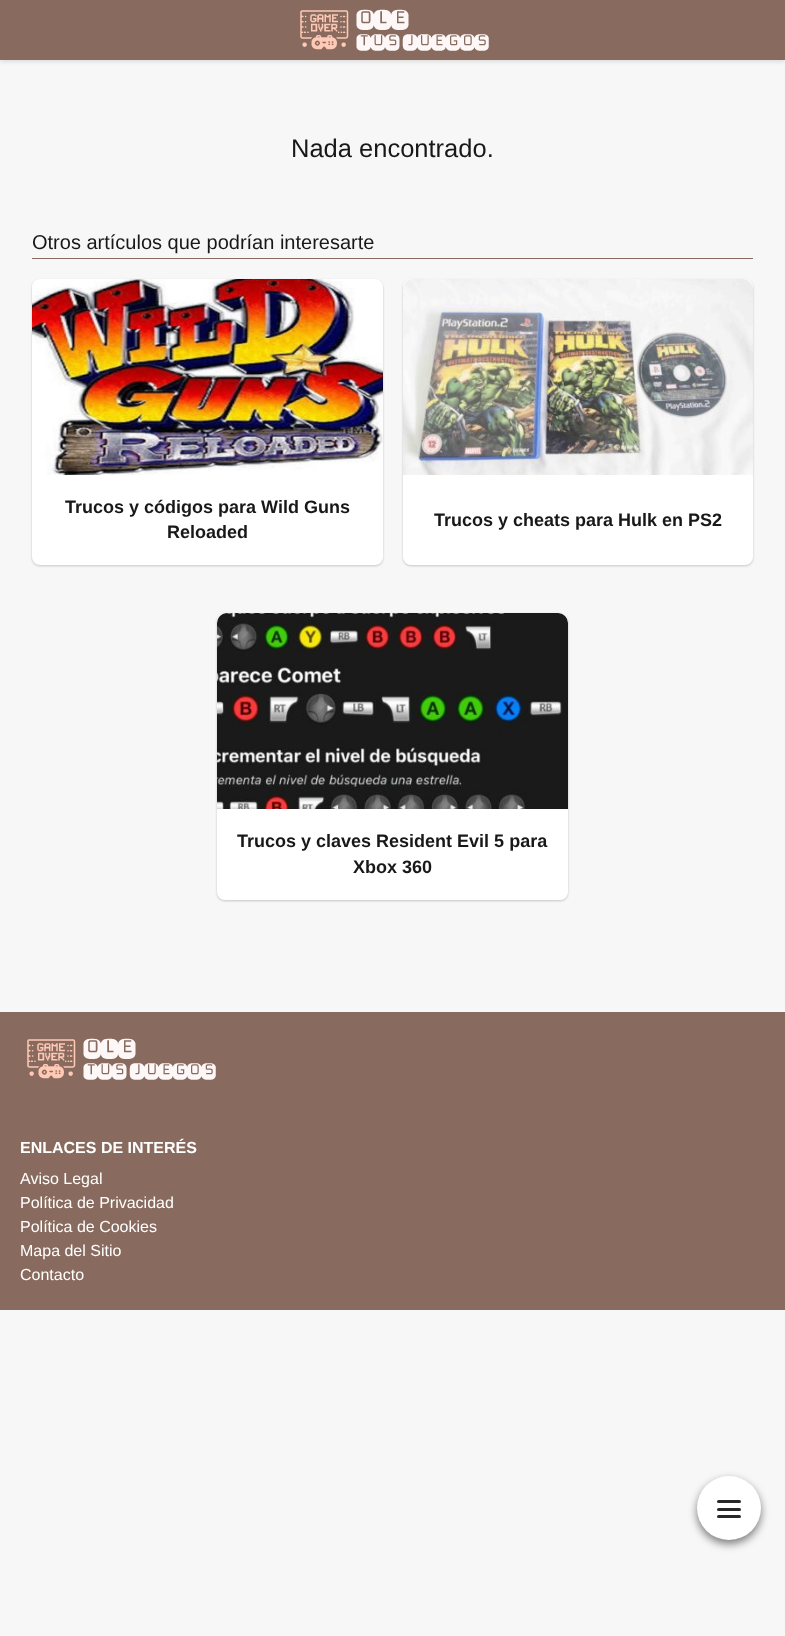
(async () => {
const canvas = document.querySelector("canvas")
canvas.width = 785
canvas.height = 1636
const c = canvas.getContext("2d")
c.miterLimit = 4
c.fontKerning = "normal"
function T(s,x,y){c.fillText(s,x,y)}
function R(x,y,w,h){c.fillRect(x,y,w,h)}
function Q(x,y,w,h,r){c.beginPath();c.roundRect(x,y,w,h,r);c.fill()}
async function I(src,x,y,w,h){const img=new Image();img.src=src;await img.decode();c.drawImage(img,x,y,w,h)}
c.fillStyle="#f7f7f7"
R(0,0,785,1636)
c.fillStyle="#0000001a"
c.filter="blur(2px)"
c.beginPath()
c.rect(0,2,785,60)
c.fill()
c.filter="none"
c.fillStyle="#886b5e"
R(0,0,785,60)
await I("1.png",300,9,189,42)
c.fillStyle="#00000080"
c.filter="blur(4px)"
c.beginPath()
c.roundRect(697,1480,64,64,32)
c.fill()
c.filter="none"
c.fillStyle="#fff"
c.beginPath()
c.arc(729,1508,32,0,7)
c.fill()
c.fillStyle="#282828"
Q(717,1500,24,3,1.5)
Q(717,1508,24,3,1.5)
Q(717,1515,24,3,1.5)
c.font="25.5px Liberation Sans"
c.fillStyle="#181818"
T("Nada encontrado.",291,157)
c.fillStyle="#886b5e"
R(32,258,721,1)
c.font="20px Liberation Sans"
c.fillStyle="#181818"
T("Otros artículos que podrían interesarte",32,249)
c.fillStyle="#00000033"
c.filter="blur(1px)"
c.beginPath()
c.roundRect(32,280,351,286,8)
c.fill()
c.filter="none"
c.fillStyle="#fff"
Q(32,279,351,286,8)
await I("2.png",32,279,351,196)
c.font="bold 18px Liberation Sans"
c.fillStyle="#181818"
T("Trucos y códigos para Wild Guns",65,513)
T("Reloaded",167,538)
c.fillStyle="#00000033"
c.filter="blur(1px)"
c.beginPath()
c.roundRect(403,280,350,286,8)
c.fill()
c.filter="none"
c.fillStyle="#fff"
Q(403,279,350,286,8)
await I("3.png",403,279,350,196)
c.fillStyle="#181818"
T("Trucos y cheats para Hulk en PS2",434,526)
c.fillStyle="#00000033"
c.filter="blur(1px)"
c.beginPath()
c.roundRect(217,614,351,287,8)
c.fill()
c.filter="none"
c.fillStyle="#fff"
Q(217,613,351,287,8)
await I("4.png",217,613,351,196)
c.fillStyle="#181818"
T("Trucos y claves Resident Evil 5 para",237,847)
T("Xbox 360",353,873)
c.fillStyle="#886b5e"
R(0,1012,785,298)
await I("1.png",27,1038,189,42)
c.font="bold 16px Liberation Sans"
c.fillStyle="#fff"
T("ENLACES DE INTERÉS",20,1153)
c.font="16px Liberation Sans"
T("Aviso Legal",20,1184)
T("Política de Privacidad",20,1208)
T("Política de Cookies",20,1232)
T("Mapa del Sitio",20,1256)
T("Contacto",20,1280)
})()
